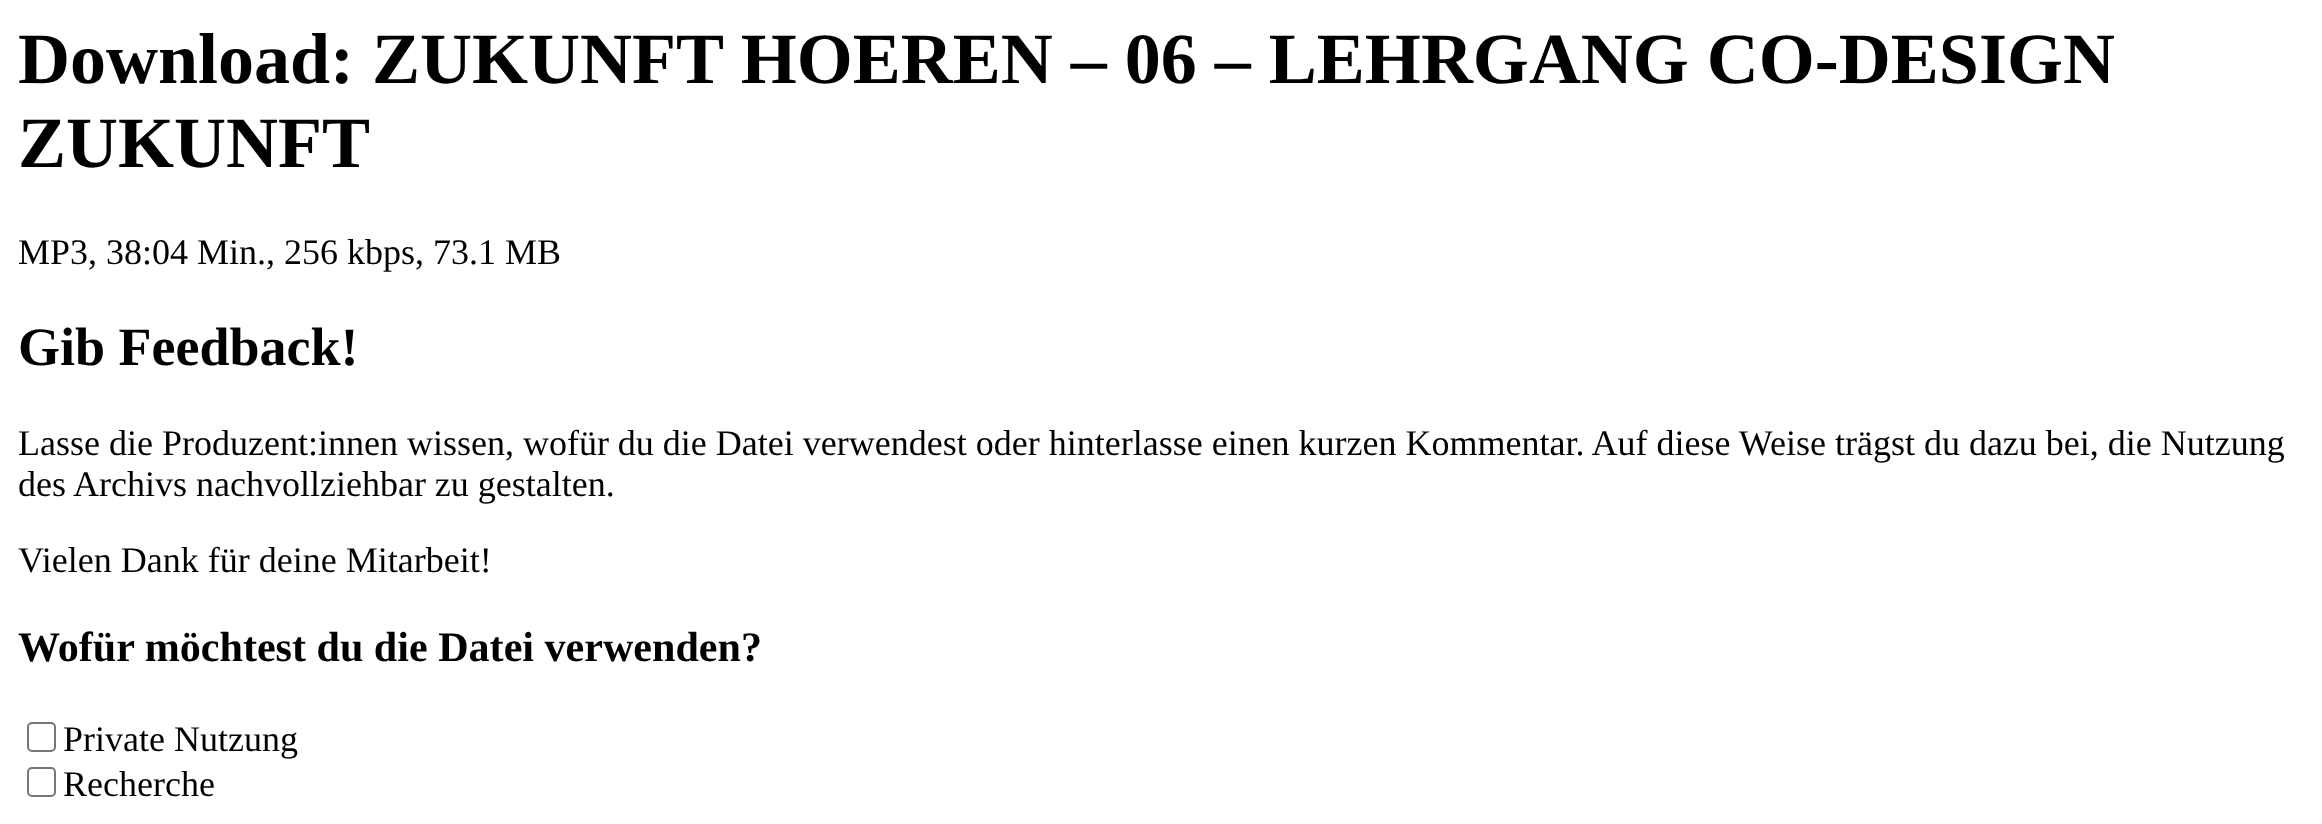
(async () => {
const canvas = document.querySelector("canvas")
canvas.width = 2322
canvas.height = 824
const c = canvas.getContext("2d")
c.miterLimit = 4
c.fontKerning = "normal"
function T(s,x,y){c.fillText(s,x,y)}
function R(x,y,w,h){c.fillRect(x,y,w,h)}
c.fillStyle="#fff"
R(0,0,2322,824)
c.font="bold 72px Liberation Serif"
c.fillStyle="#000"
T("Download: ZUKUNFT HOEREN – 06 – LEHRGANG CO-DESIGN",18,83)
T("ZUKUNFT",18,167)
c.font="36px Liberation Serif"
T("MP3, 38:04 Min., 256 kbps, 73.1 MB",18,264)
c.font="bold 54px Liberation Serif"
T("Gib Feedback!",18,365)
c.font="36px Liberation Serif"
T("Lasse die Produzent:innen wissen, wofür du die Datei verwendest oder hinterlasse einen kurzen Kommentar. Auf diese Weise trägst du dazu bei, die Nutzung",18,455)
T("des Archivs nachvollziehbar zu gestalten.",18,496)
T("Vielen Dank für deine Mitarbeit!",18,572)
c.font="bold 42.1px Liberation Serif"
T("Wofür möchtest du die Datei verwenden?",18,661)
c.beginPath()
c.roundRect(28,723,27,28,4)
c.strokeStyle="#767676"
c.lineWidth=2
c.stroke()
c.font="36px Liberation Serif"
T("Private Nutzung",63,751)
c.beginPath()
c.roundRect(28,768,27,28,4)
c.stroke()
T("Recherche",63,796)
})()
